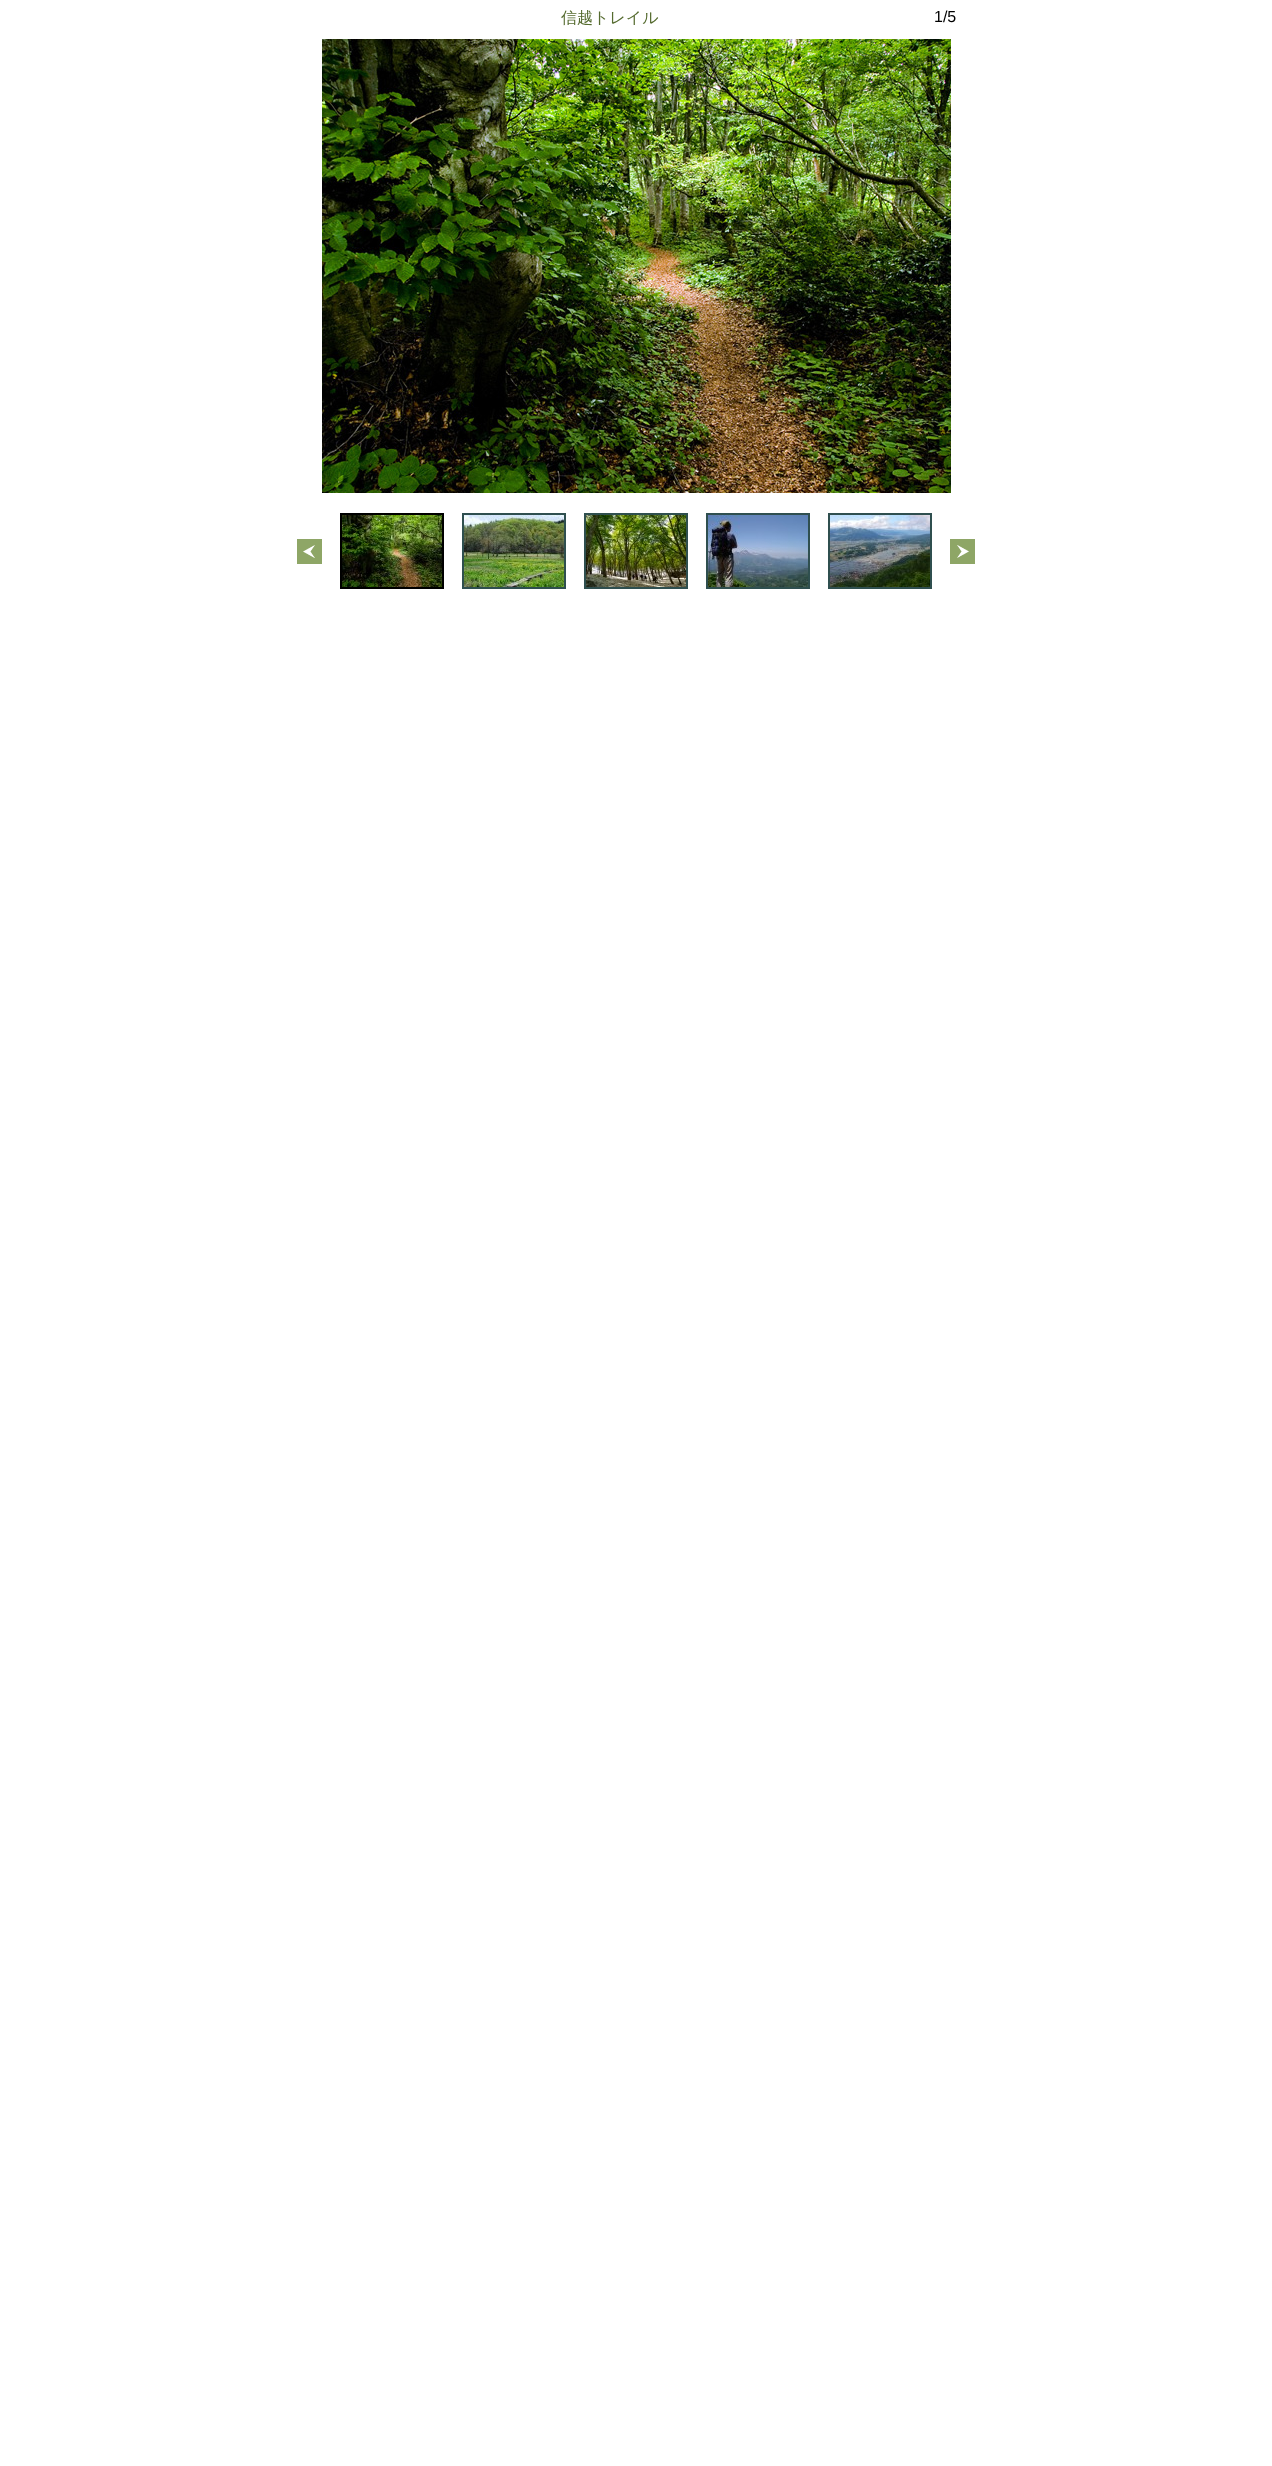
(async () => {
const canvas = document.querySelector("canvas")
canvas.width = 1272
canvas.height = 2466
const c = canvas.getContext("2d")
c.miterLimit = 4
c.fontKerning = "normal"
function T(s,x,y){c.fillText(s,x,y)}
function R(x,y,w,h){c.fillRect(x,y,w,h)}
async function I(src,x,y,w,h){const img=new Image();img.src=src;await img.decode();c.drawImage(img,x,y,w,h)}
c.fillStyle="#fff"
R(0,0,1272,2466)
c.font="500 16px WenQuanYi Zen Hei"
c.fillStyle="#556b2f"
T("信越トレイル",561,23)
c.font="16px Liberation Sans"
c.fillStyle="#000"
T("1/5",934,22)
await I("1.png",322,39,629,454)
await I("2.png",297,539,25,25)
c.strokeStyle="#000"
c.lineWidth=2
c.strokeRect(341,514,102,74)
await I("3.png",342,515,100,72)
c.strokeStyle="#2f4f4f"
c.strokeRect(463,514,102,74)
await I("4.png",464,515,100,72)
c.strokeRect(585,514,102,74)
await I("5.png",586,515,100,72)
c.strokeRect(707,514,102,74)
await I("6.png",708,515,100,72)
c.strokeRect(829,514,102,74)
await I("7.png",830,515,100,72)
await I("8.png",950,539,25,25)
})()
